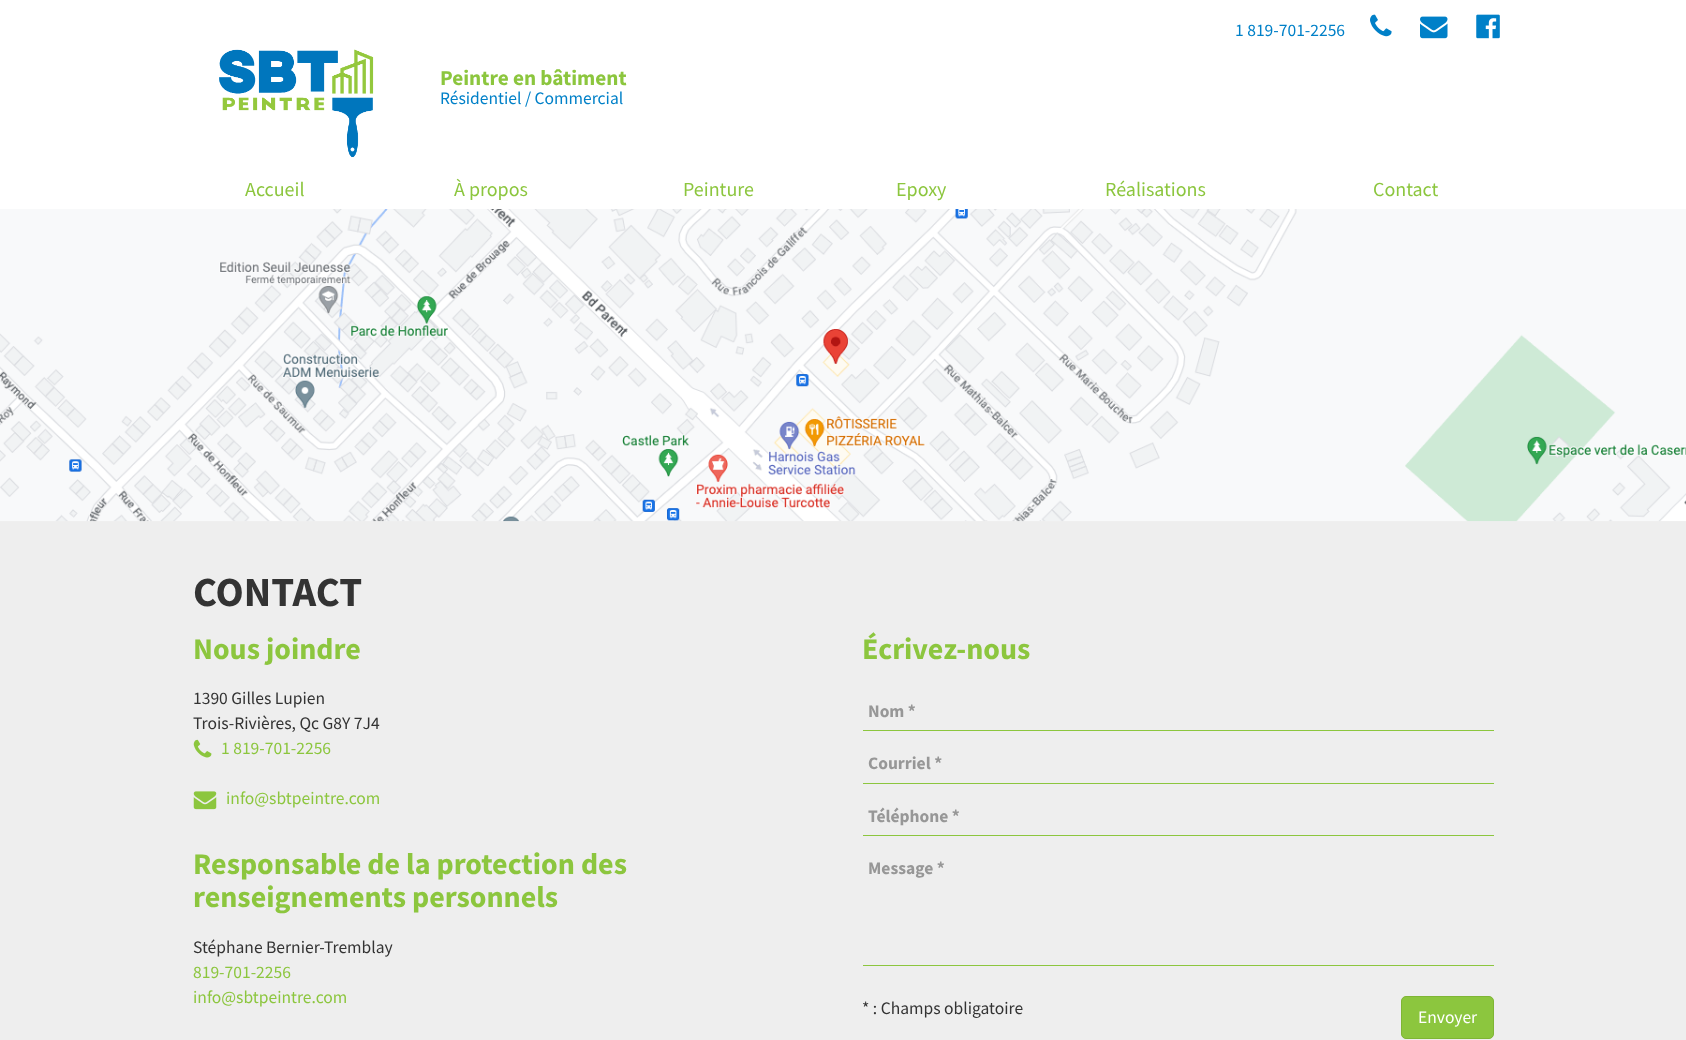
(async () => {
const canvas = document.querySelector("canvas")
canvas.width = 1686
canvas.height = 1040
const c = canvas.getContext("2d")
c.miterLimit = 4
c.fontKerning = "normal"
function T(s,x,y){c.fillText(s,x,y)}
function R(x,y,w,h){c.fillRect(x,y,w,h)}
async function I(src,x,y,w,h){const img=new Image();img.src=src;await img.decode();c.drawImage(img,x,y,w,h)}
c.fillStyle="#eee"
R(0,0,1686,1040)
c.fillStyle="#fff"
R(0,0,1686,209)
c.font="17.5px Source Sans Pro"
c.fillStyle="#0080c8"
T("1 819-701-2256",1235,36)
await I("1.png",1370,14,22,23)
await I("2.png",1420,16,28,23)
await I("3.png",1476,14,24,25)
c.font="20px Source Sans Pro"
c.fillStyle="#8cc63e"
T("Accueil",245,196)
T("À propos",454,196)
T("Peinture",683,196)
T("Epoxy",896,196)
T("Réalisations",1105,196)
T("Contact",1373,196)
await I("4.png",219,49,155,109)
c.font="bold 21.25px Source Sans Pro"
T("Peintre en bâtiment",440,85)
c.font="17.5px Source Sans Pro"
c.fillStyle="#0080c8"
T("Résidentiel / Commercial",440,104)
await I("5.png",0,209,1686,313)
c.font="bold 41.25px Source Sans Pro"
c.fillStyle="#333"
T("CONTACT",193,606)
c.font="bold 30px Source Sans Pro"
c.fillStyle="#8cc63e"
T("Nous joindre",193,659)
c.font="17.5px Source Sans Pro"
c.fillStyle="#333"
T("1390 Gilles Lupien",193,704)
T("Trois-Rivières, Qc G8Y 7J4",193,729)
await I("6.png",193,739,19,19)
c.fillStyle="#8cc63e"
T("1 819-701-2256",221,754)
await I("7.png",193,791,24,19)
T("info@sbtpeintre.com",226,804)
c.font="bold 30px Source Sans Pro"
T("Responsable de la protection des",193,874)
T("renseignements personnels",193,907)
c.font="17.5px Source Sans Pro"
c.fillStyle="#333"
T("Stéphane Bernier-Tremblay",193,953)
c.fillStyle="#8cc63e"
T("819-701-2256",193,978)
T("info@sbtpeintre.com",193,1003)
c.font="bold 30px Source Sans Pro"
T("Écrivez-nous",862,659)
c.font="bold 17.5px Source Sans Pro"
c.fillStyle="#979797"
T("Nom *",868,717)
c.fillStyle="#8cc63e"
R(863,730,631,1)
c.fillStyle="#979797"
T("Courriel *",868,769)
c.fillStyle="#8cc63e"
R(863,783,631,1)
c.fillStyle="#979797"
T("Téléphone *",868,822)
c.fillStyle="#8cc63e"
R(863,835,631,1)
c.fillStyle="#979797"
T("Message *",868,874)
c.fillStyle="#8cc63e"
R(863,965,631,1)
c.font="17.5px Source Sans Pro"
c.fillStyle="#333"
T("* : Champs obligatoire",862,1014)
c.fillStyle="#8cc63e"
c.beginPath()
c.roundRect(1401.5,996.5,92,42,4.5)
c.fill()
c.strokeStyle="#7fb535"
c.stroke()
c.fillStyle="#fff"
T("Envoyer",1418,1023)
})()
